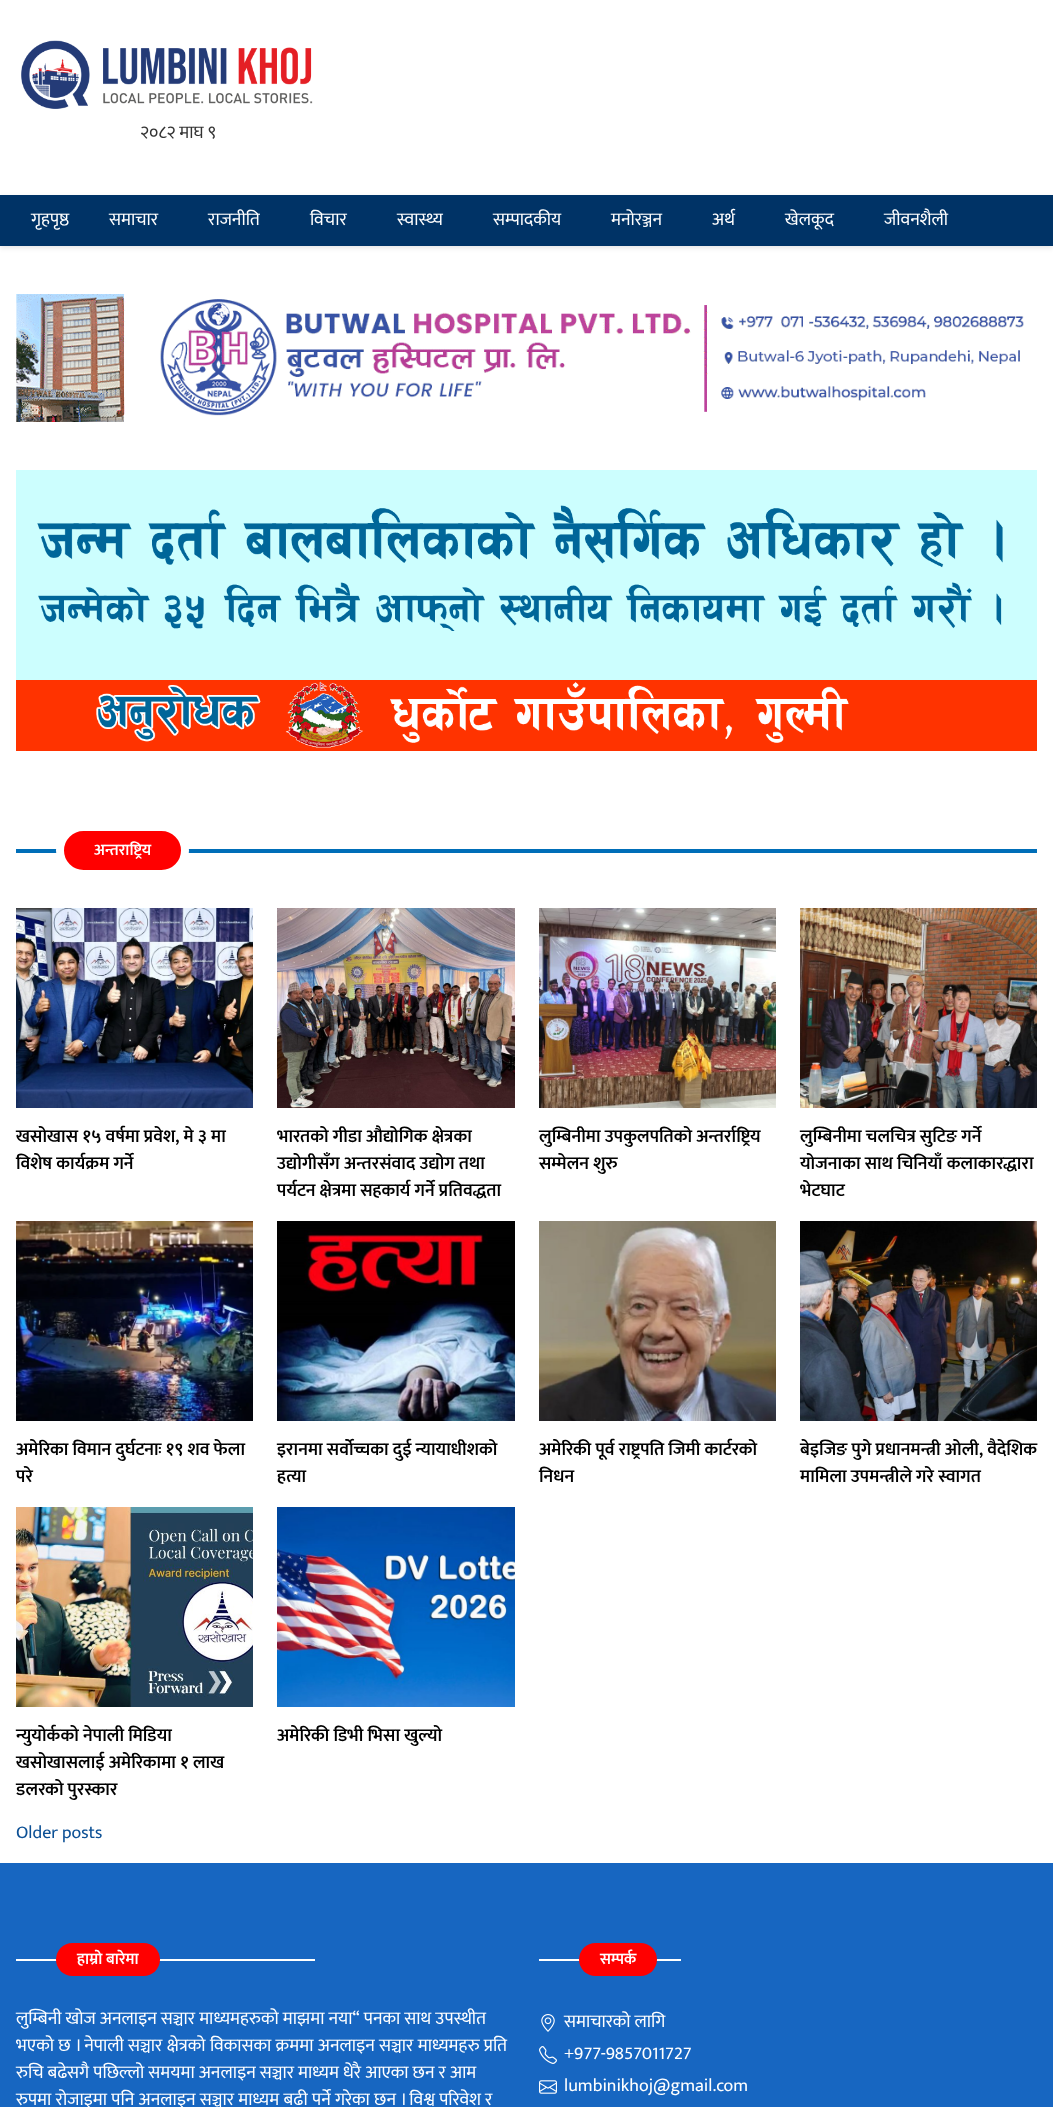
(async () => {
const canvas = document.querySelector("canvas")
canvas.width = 1053
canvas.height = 2107
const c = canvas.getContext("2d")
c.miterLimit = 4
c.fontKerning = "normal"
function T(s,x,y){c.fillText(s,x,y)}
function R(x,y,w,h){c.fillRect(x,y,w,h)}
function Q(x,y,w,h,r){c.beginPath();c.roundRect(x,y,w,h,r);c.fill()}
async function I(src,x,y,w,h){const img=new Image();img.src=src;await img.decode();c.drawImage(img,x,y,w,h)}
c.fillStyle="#fff"
R(0,0,1053,2107)
await I("1.png",21,40,292,69)
c.font="18px Mukta"
c.fillStyle="#333"
T("२०८२ माघ ९",140,138)
c.fillStyle="#0000001a"
c.filter="blur(2.5px)"
c.beginPath()
c.rect(0,197,1053,51)
c.fill()
c.filter="none"
c.fillStyle="#036"
R(0,195,1053,51)
c.fillStyle="#fff"
T("गृहपृष्ठ",31,225)
T("समाचार",109,225)
T("राजनीति",208,225)
T("विचार",310,225)
T("स्वास्थ्य",397,225)
T("सम्पादकीय",493,225)
T("मनोरञ्जन",611,225)
T("अर्थ",712,225)
T("खेलकूद",785,225)
T("जीवनशैली",884,225)
await I("2.png",16,294,1008,128)
await I("3.png",16,470,1021,281)
c.fillStyle="#006eb8"
R(16,849,1021,4)
c.fillStyle="#f00"
c.beginPath()
c.roundRect(60,827,125,47,23.5)
c.fill()
c.strokeStyle="#fff"
c.lineWidth=8
c.stroke()
c.font="600 16px Mukta"
c.fillStyle="#fff"
T("अन्तराष्ट्रिय",94,855)
await I("4.png",16,908,237,200)
c.font="600 18px Mukta"
c.fillStyle="#000"
T("खसोखास १५ वर्षमा प्रवेश, मे ३ मा",16,1142)
T("विशेष कार्यक्रम गर्ने",16,1169)
await I("5.png",277,908,238,200)
T("भारतको गीडा औद्योगिक क्षेत्रका",277,1142)
T("उद्योगीसँग अन्तरसंवाद उद्योग तथा",277,1169)
T("पर्यटन क्षेत्रमा सहकार्य गर्ने प्रतिवद्धता",277,1196)
await I("6.png",539,908,237,200)
T("लुम्बिनीमा उपकुलपतिको अन्तर्राष्ट्रिय",539,1142)
T("सम्मेलन शुरु",539,1169)
await I("7.png",800,908,237,200)
T("लुम्बिनीमा चलचित्र सुटिङ गर्ने",800,1142)
T("योजनाका साथ चिनियाँ कलाकारद्धारा",800,1169)
T("भेटघाट",800,1196)
await I("8.png",16,1221,237,200)
T("अमेरिका विमान दुर्घटनाः १९ शव फेला",16,1455)
T("परे",16,1482)
await I("9.png",277,1221,238,200)
T("इरानमा सर्वोच्चका दुई न्यायाधीशको",277,1455)
T("हत्या",277,1482)
await I("10.png",539,1221,237,200)
T("अमेरिकी पूर्व राष्ट्रपति जिमी कार्टरको",539,1455)
T("निधन",539,1482)
await I("11.png",800,1221,237,200)
T("बेइजिङ पुगे प्रधानमन्त्री ओली, वैदेशिक",800,1455)
T("मामिला उपमन्त्रीले गरे स्वागत",800,1482)
await I("12.png",16,1507,237,200)
T("न्युयोर्कको नेपाली मिडिया",16,1741)
T("खसोखासलाई अमेरिकामा १ लाख",16,1768)
T("डलरको पुरस्कार",16,1795)
await I("13.png",277,1507,238,200)
T("अमेरिकी डिभी भिसा खुल्यो",277,1741)
c.font="18px Mukta"
c.fillStyle="#0c5095"
T("Older posts",16,1838)
c.fillStyle="#1766c1"
R(0,1863,1053,244)
c.fillStyle="#fff"
R(16,1959,299,2)
c.fillStyle="#f00"
Q(56,1943,104,33,16.5)
c.font="600 16px Mukta"
c.fillStyle="#fff"
T("हाम्रो बारेमा",77,1964)
c.font="18px Mukta"
T("लुम्बिनी खोज अनलाइन सञ्चार माध्यमहरुको माझमा नया“ पनका साथ उपस्थीत",16,2024)
c.wordSpacing="0.25px"
T("भएको छ । नेपाली सञ्चार क्षेत्रको विकासका क्रममा अनलाइन सञ्चार माध्यमहरु प्रति",16,2051)
c.wordSpacing="0px"
T("रुचि बढेसगै पछिल्लो समयमा अनलाइन सञ्चार माध्यम धेरै आएका छन र आम",16,2078)
c.wordSpacing="0.2px"
T("रुपमा रोजाइमा पनि अनलाइन सञ्चार माध्यम बढी पर्ने गरेका छन । विश्व परिवेश र",16,2105)
R(539,1959,142,2)
c.fillStyle="#f00"
Q(579,1943,78,33,16.5)
c.wordSpacing="0px"
c.font="600 16px Mukta"
c.fillStyle="#fff"
T("सम्पर्क",600,1964)
await I("14.png",541,2014,14,18)
c.font="18px Mukta"
T("समाचारको लागि",564,2027)
await I("15.png",539,2046,18,18)
T("+977-9857011727",564,2059)
await I("16.png",539,2080,18,14)
T("lumbinikhoj@gmail.com",564,2091)
})()
